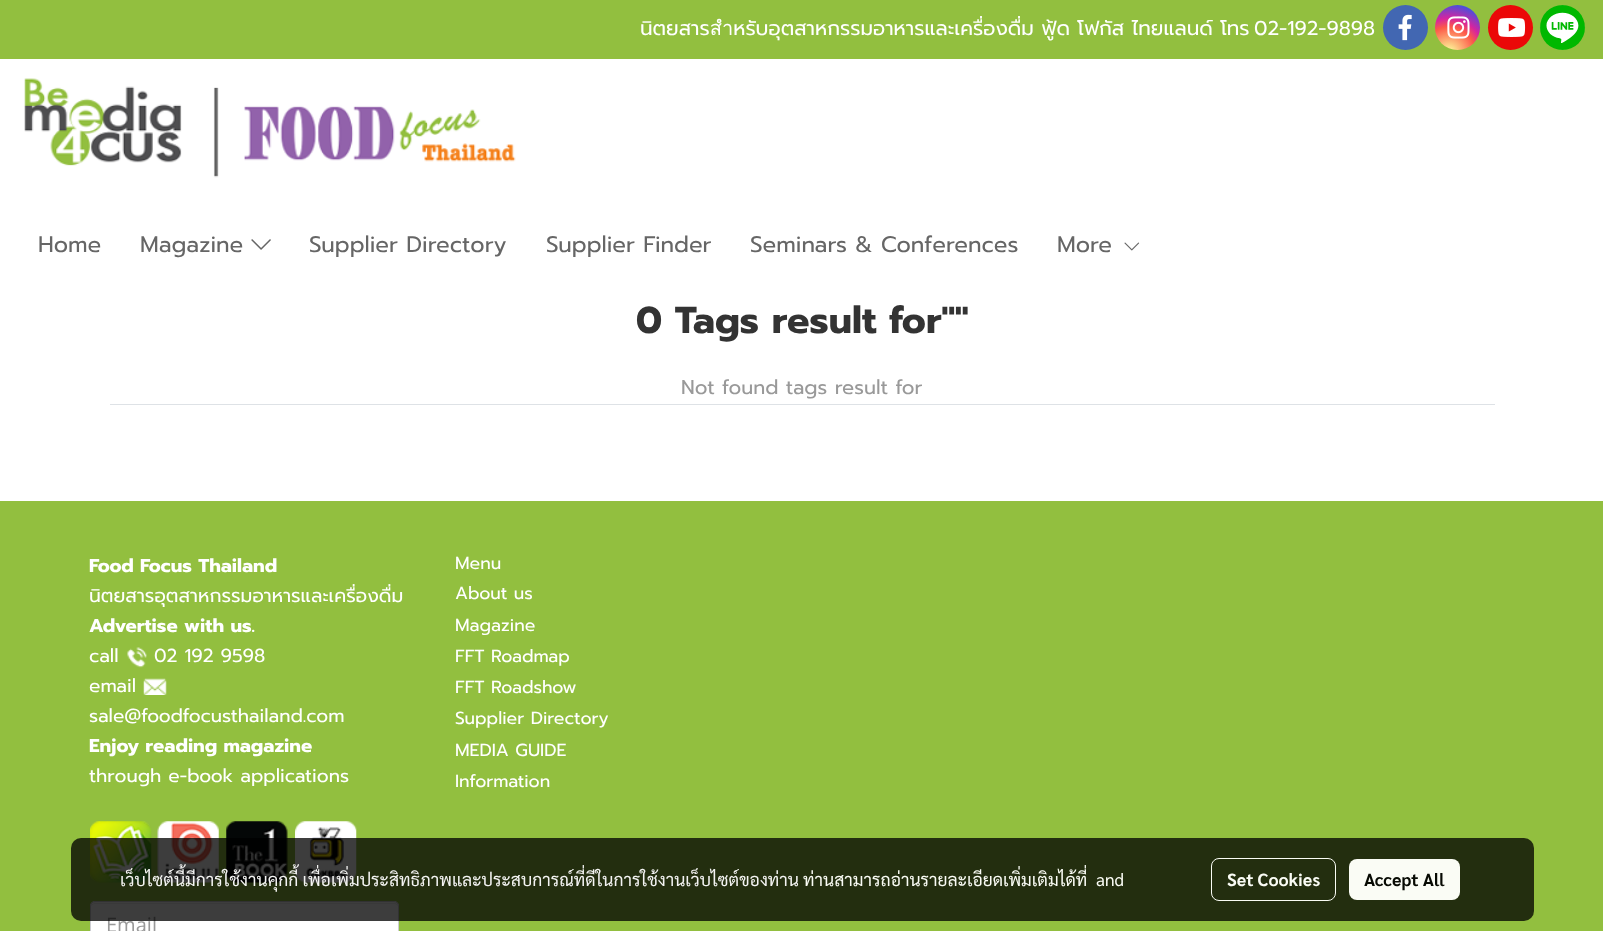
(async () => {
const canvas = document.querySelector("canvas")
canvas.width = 1603
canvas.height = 931
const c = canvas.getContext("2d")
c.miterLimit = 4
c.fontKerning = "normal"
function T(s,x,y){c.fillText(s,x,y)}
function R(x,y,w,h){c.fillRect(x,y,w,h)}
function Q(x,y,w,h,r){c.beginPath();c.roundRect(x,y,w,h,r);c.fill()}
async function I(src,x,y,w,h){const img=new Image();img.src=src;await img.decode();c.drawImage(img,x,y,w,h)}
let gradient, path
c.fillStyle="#fff"
R(0,0,1603,931)
c.fillStyle="#92bf3f"
R(0,0,1603,59)
c.save()
c.beginPath()
c.rect(640,9,735,40)
c.clip()
c.font="20px Prompt"
c.fillStyle="#fff"
T("นิตยสารสำหรับอุตสาหกรรมอาหารและเครื่องดื่ม ฟู้ด โฟกัส ไทยแลนด์ โทร",640,35)
c.restore()
c.font="20px Prompt"
c.fillStyle="#fff"
T("02-192-9898",1254,35)
c.fillStyle="#4267b2"
c.beginPath()
c.arc(1405.5,27.5,22.5,0,7)
c.fill()
await I("1.png",1398,14,14,27)
gradient = c.createRadialGradient(1449,53,0,1449,53,58)
gradient.addColorStop(0,"#fdf497")
gradient.addColorStop(.05,"#fdf497")
gradient.addColorStop(.45,"#fd5949")
gradient.addColorStop(.6,"#d6249f")
gradient.addColorStop(.9,"#285aeb")
c.fillStyle = gradient
c.beginPath()
c.arc(1457.5,27.5,22.5,0,7)
c.fill()
await I("2.png",1447,16,23,23)
c.fillStyle="#eb0808"
c.beginPath()
c.arc(1510.5,27.5,22.5,0,7)
c.fill()
await I("3.png",1498,18,28,19)
c.fillStyle="#00b800"
c.beginPath()
c.arc(1562.5,27.5,22.5,0,7)
c.fill()
await I("4.png",1540,5,45,45)
await I("5.png",24,78,492,100)
c.font="22.5px Prompt"
c.fillStyle="#666"
T("Home",38,252)
T("Magazine",140,252)
await I("6.png",251,239,20,11)
T("Supplier Directory",309,252)
T("Supplier Finder",546,252)
T("Seminars & Conferences",750,252)
T("More",1057,252)
await I("7.png",1124,242,16,9)
c.font="bold 37.5px Prompt"
c.fillStyle="#333"
T("0 Tags result for\"\"",636,333)
c.fillStyle="#dee2e6"
R(110,404,1385,1)
c.font="20px Prompt"
c.fillStyle="#999"
T("Not found tags result for",681,394)
c.fillStyle="#92bf3f"
R(0,501,1603,430)
c.font="bold 18.75px Prompt"
c.fillStyle="#fff"
T("Food Focus Thailand",89,572)
c.font="18.75px Prompt"
T("นิตยสารอุตสาหกรรมอาหารและเครื่องดื่ม",89,602)
c.font="bold 18.75px Prompt"
T("Advertise with us.",89,632)
c.font="18.75px Prompt"
T("call",89,662)
await I("8.png",127,647,20,21)
T("02 192 9598",154,662)
T("email",89,692)
await I("9.png",143,678,24,17)
T("sale@foodfocusthailand.com",89,722)
c.font="bold 18.75px Prompt"
T("Enjoy reading magazine",89,752)
c.font="18.75px Prompt"
T("through e-book applications",89,782)
await I("10.png",90,821,62,62)
await I("11.png",157,821,62,62)
await I("12.png",226,821,62,62)
await I("13.png",295,821,62,62)
Q(90,901,309,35,5)
c.fillStyle="#ececec"
path = new Path2D("M95 904h299c2 0 4 1 4 4c0-3-1-5-4-5h-299l-3 1c-1 1-1 3-1 4c0-3 2-4 4-4z")
c.fill(path)
c.beginPath()
c.roundRect(90.5,901.5,308,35,4.5)
c.strokeStyle="#cdced2"
c.stroke()
c.font="20px Open Sans"
c.fillStyle="#999"
T("Email",106,932)
c.font="17.5px Prompt"
c.fillStyle="#fff"
T("Menu",455,569)
T("About us",455,599)
T("Magazine",455,631)
T("FFT Roadmap",455,662)
T("FFT Roadshow",455,693)
T("Supplier Directory",455,724)
T("MEDIA GUIDE",455,756)
T("Information",455,787)
c.fillStyle="#000000c2"
Q(71,838,1463,83,10)
c.font="17.5px Sarabun"
c.fillStyle="#f4f4f3"
T("เว็บไซต์นี้มีการใช้งานคุกกี้ เพื่อเพิ่มประสิทธิภาพและประสบการณ์ที่ดีในการใช้งานเว็บไซต์ของท่าน",120,886)
c.fillStyle="#fafcf5"
T("ท่านสามารถอ่านรายละเอียดเพิ่มเติมได้ที่",803,886)
T("and",1096,886)
c.beginPath()
c.roundRect(1211.5,858.5,124,42,7.5)
c.strokeStyle="#fafcf5"
c.stroke()
c.font="bold 17.5px Sarabun"
T("Set Cookies",1227,886)
Q(1349,859,111,41,8)
c.fillStyle="#070a03"
T("Accept All",1364,886)
})()
